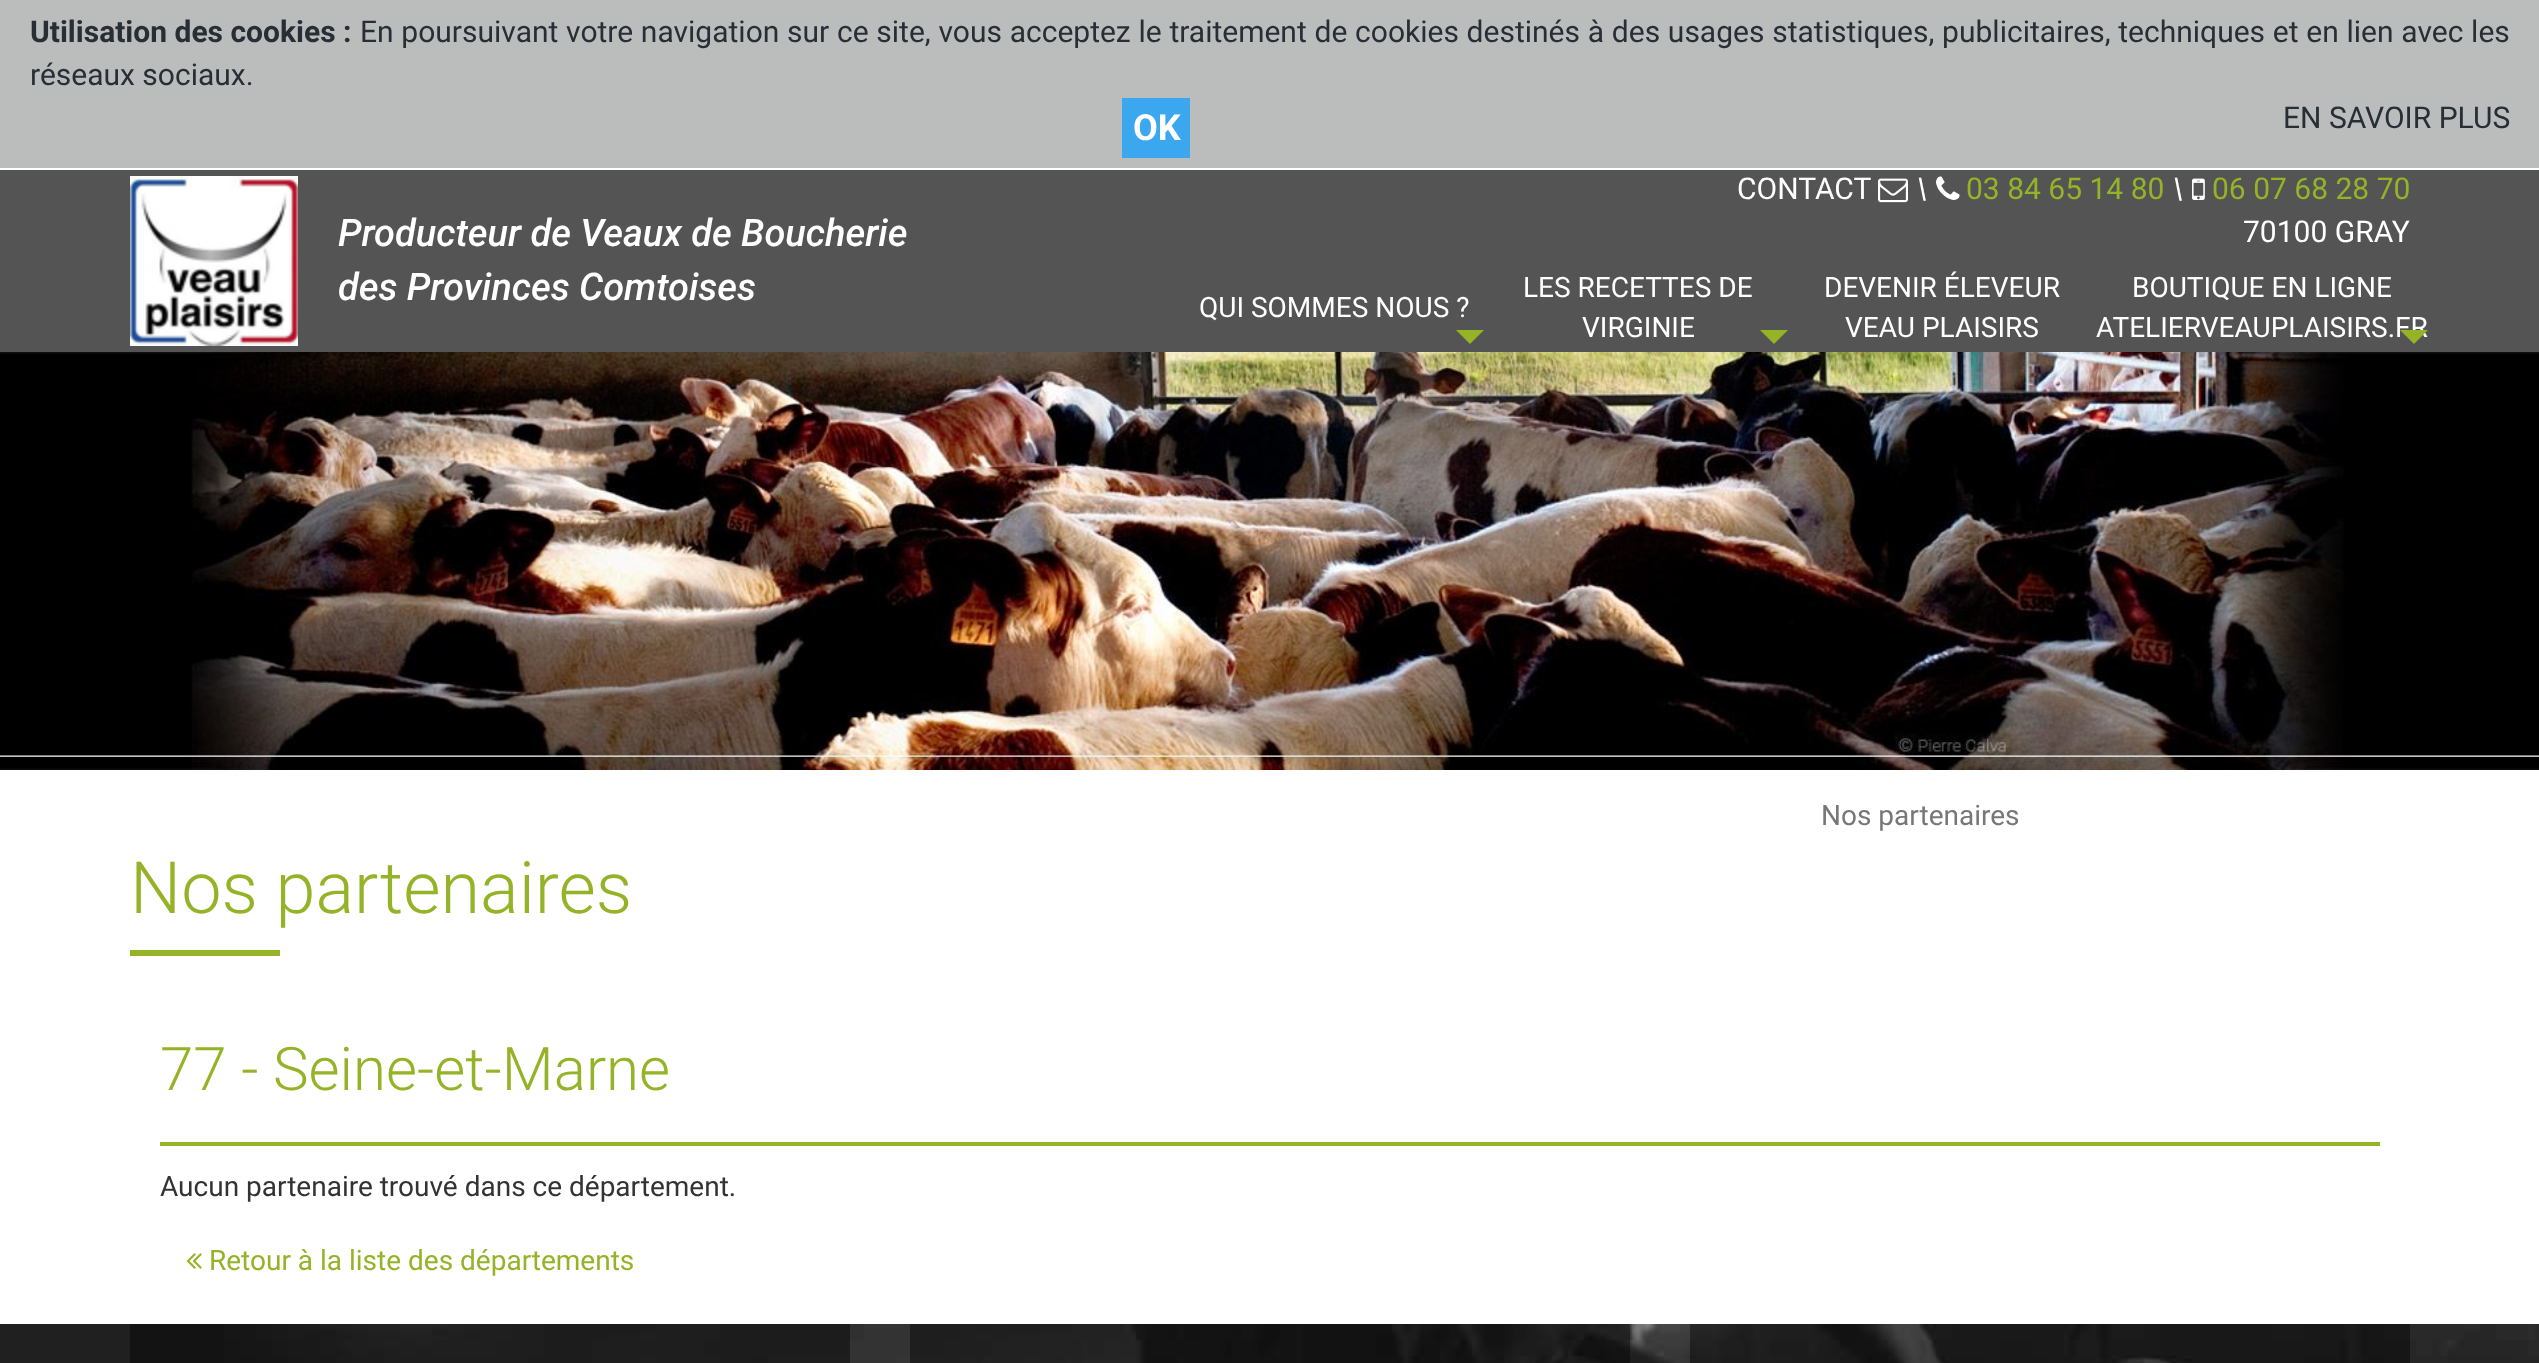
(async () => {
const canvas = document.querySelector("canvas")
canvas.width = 2539
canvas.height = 1363
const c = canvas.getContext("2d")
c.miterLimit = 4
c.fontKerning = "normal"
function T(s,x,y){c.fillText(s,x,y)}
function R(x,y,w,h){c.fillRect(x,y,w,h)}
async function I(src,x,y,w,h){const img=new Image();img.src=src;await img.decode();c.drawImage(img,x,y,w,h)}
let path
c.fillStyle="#fff"
R(0,0,2539,1363)
c.fillStyle="#bbbcbc"
R(0,0,2539,168)
c.font="bold 30px Roboto"
c.fillStyle="#282e35"
T("Utilisation des cookies :",30,42)
c.wordSpacing="0.3px"
c.font="30px Roboto"
T("En poursuivant votre navigation sur ce site, vous acceptez le traitement de cookies destinés à des usages statistiques, publicitaires, techniques et en lien avec les",360,42)
c.wordSpacing="0px"
T("réseaux sociaux.",30,85)
c.fillStyle="#3aa7ef"
R(1122,98,68,60)
c.font="bold 36px Roboto"
c.fillStyle="#fff"
T("OK",1133,140)
c.font="30px Roboto"
c.fillStyle="#282e35"
T("EN SAVOIR PLUS",2283,128)
c.fillStyle="#545454"
R(0,170,2539,182)
c.fillStyle="#fff"
T("CONTACT",1737,199)
await I("1.png",1878,178,30,25)
c.font="italic 30px Roboto"
T("\\",1916,199)
await I("2.png",1936,176,24,24)
c.font="30px Roboto"
c.fillStyle="#94b327"
T("03 84 65 14 80",1966,199)
c.font="italic 30px Roboto"
c.fillStyle="#fff"
T("\\",2172,199)
await I("3.png",2192,178,13,22)
c.font="30px Roboto"
c.fillStyle="#94b327"
T("06 07 68 28 70",2212,199)
c.fillStyle="#fff"
T("70100 GRAY",2243,242)
await I("4.png",130,176,168,170)
c.font="italic 500 38px Roboto"
T("Producteur de Veaux de Boucherie",338,246)
T("des Provinces Comtoises",338,300)
c.font="28px Roboto"
T("QUI SOMMES NOUS ?",1199,317)
c.fillStyle="#94b327"
path = new Path2D("M1456 330h28l-14 14z")
c.fill(path)
c.fillStyle="#fff"
T("LES RECETTES DE",1523,297)
T("VIRGINIE",1582,337)
c.fillStyle="#94b327"
path = new Path2D("M1760 330h28l-14 14z")
c.fill(path)
c.fillStyle="#fff"
T("DEVENIR ÉLEVEUR",1824,297)
T("VEAU PLAISIRS",1845,337)
T("BOUTIQUE EN LIGNE",2132,297)
T("ATELIERVEAUPLAISIRS.FR",2096,337)
c.fillStyle="#94b327"
path = new Path2D("M2400 330h28l-14 14z")
c.fill(path)
await I("5.png",0,352,2539,418)
c.fillStyle="#777"
T("Nos partenaires",1821,825)
c.font="300 72px Roboto"
c.fillStyle="#94b327"
T("Nos partenaires",130,913)
R(130,950,150,6)
R(160,1142,2220,4)
c.font="300 60px Roboto"
T("77 - Seine-et-Marne",160,1090)
c.font="28px Roboto"
c.fillStyle="#333"
T("Aucun partenaire trouvé dans ce département.",160,1196)
await I("6.png",186,1253,16,16)
c.fillStyle="#94b327"
T("Retour à la liste des départements",209,1270)
c.fillStyle="#202020"
R(0,1324,224,39)
await I("7.png",224,1324,2315,39)
c.fillStyle="#00000066"
R(130,1324,720,39)
R(910,1324,720,39)
R(1690,1324,720,39)
})()
